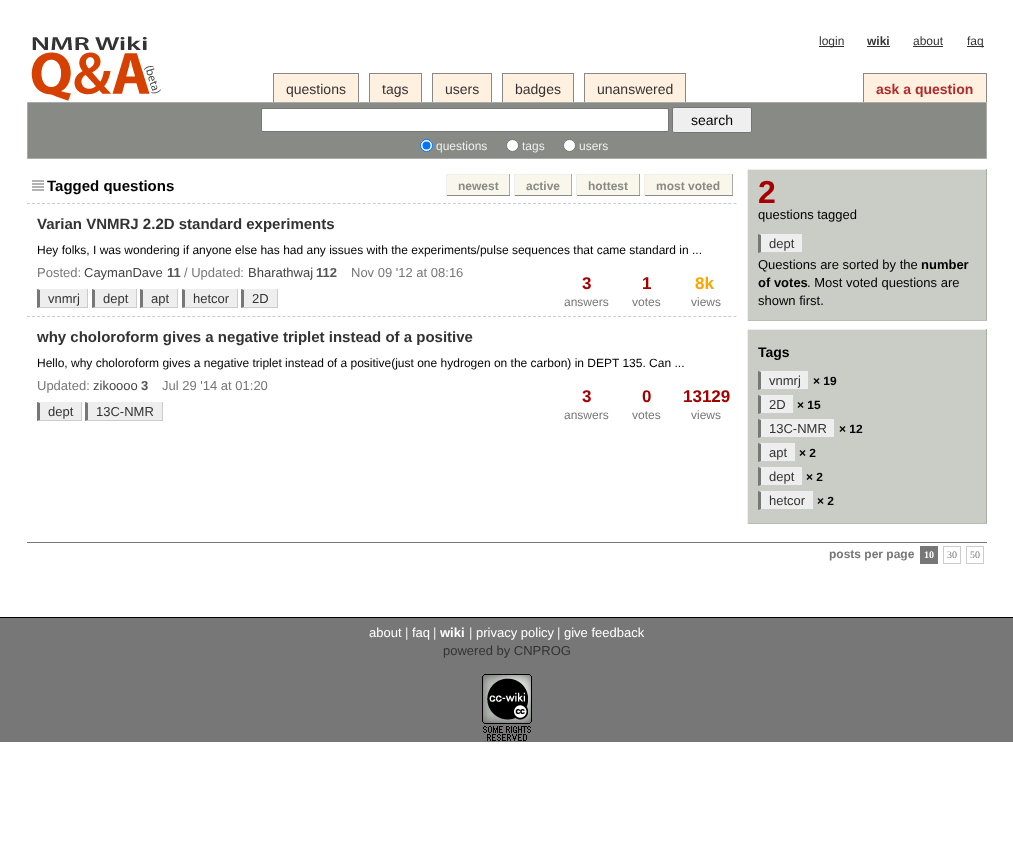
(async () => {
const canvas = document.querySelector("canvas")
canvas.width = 1013
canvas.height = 858
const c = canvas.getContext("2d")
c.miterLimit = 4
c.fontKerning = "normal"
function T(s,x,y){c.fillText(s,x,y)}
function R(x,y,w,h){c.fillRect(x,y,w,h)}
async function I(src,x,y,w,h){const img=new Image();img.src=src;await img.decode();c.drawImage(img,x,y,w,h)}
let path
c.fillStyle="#fff"
R(0,0,1013,858)
c.fillStyle="#333"
R(819,46,25,1)
c.font="12px Liberation Sans"
T("login",819,45)
c.font="bold 12px Liberation Sans"
T("wiki",867,45)
R(867,46,23,1)
c.font="12px Liberation Sans"
T("about",913,45)
R(913,46,30,1)
R(967,46,17,1)
T("faq",967,45)
await I("1.png",31,36,130,65)
c.fillStyle="#fff0e0"
R(274,74,84,28)
c.fillStyle="#888"
R(273,73,86,1)
R(358,73,1,29)
R(273,73,1,29)
c.font="14px Liberation Sans"
c.fillStyle="#333"
T("questions",286,94)
c.fillStyle="#fff0e0"
R(370,74,51,28)
c.fillStyle="#888"
R(369,73,53,1)
R(421,73,1,29)
R(369,73,1,29)
c.fillStyle="#333"
T("tags",382,94)
c.fillStyle="#fff0e0"
R(433,74,58,28)
c.fillStyle="#888"
R(432,73,60,1)
R(491,73,1,29)
R(432,73,1,29)
c.fillStyle="#333"
T("users",445,94)
c.fillStyle="#fff0e0"
R(503,74,70,28)
c.fillStyle="#888"
R(502,73,72,1)
R(573,73,1,29)
R(502,73,1,29)
c.fillStyle="#333"
T("badges",515,94)
c.fillStyle="#fff0e0"
R(585,74,100,28)
c.fillStyle="#888"
R(584,73,102,1)
R(685,73,1,29)
R(584,73,1,29)
c.fillStyle="#333"
T("unanswered",597,94)
c.fillStyle="#fff0e0"
R(864,74,122,28)
c.fillStyle="#888"
R(863,73,124,1)
R(986,73,1,29)
R(863,73,1,29)
c.font="bold 14px Liberation Sans"
c.fillStyle="#b02b2c"
T("ask a question",876,94)
c.fillStyle="#888a85"
c.beginPath()
c.rect(27.5,102.5,959,56)
c.fill()
c.strokeStyle="#aaa"
c.stroke()
c.fillStyle="#fff"
c.beginPath()
c.roundRect(261.5,108.5,407,23,1.5)
c.fill()
c.strokeStyle="#767676"
c.stroke()
c.fillStyle="#efefef"
c.beginPath()
c.roundRect(672.5,107.5,79,25,1.5)
c.fill()
c.stroke()
c.font="14px Liberation Sans"
c.fillStyle="#000"
T("search",691,125)
c.fillStyle="#fff"
c.beginPath()
c.arc(426.5,145.5,6,0,7)
c.fill()
c.strokeStyle="#0075ff"
c.stroke()
c.fillStyle="#0075ff"
c.beginPath()
c.arc(426.5,145.5,4,0,7)
c.fill()
c.font="12px Liberation Sans"
c.fillStyle="#eee"
T("questions",436,150)
c.fillStyle="#fff"
c.beginPath()
c.arc(512.5,145.5,6,0,7)
c.fill()
c.strokeStyle="#767676"
c.stroke()
c.fillStyle="#eee"
T("tags",522,150)
c.fillStyle="#fff"
c.beginPath()
c.arc(569.5,145.5,6,0,7)
c.fill()
c.stroke()
c.fillStyle="#eee"
T("users",579,150)
c.fillStyle="#777"
R(27,542,960,1)
await I("2.png",32,180,12,11)
c.font="bold 15px Liberation Sans"
c.fillStyle="#000"
T("Tagged questions",47,191)
c.fillStyle="#f9f7eb"
R(447,175,62,20)
c.fillStyle="#eeeeec"
R(446,174,64,1)
c.fillStyle="#a9aca5"
R(509,174,1,22)
c.fillStyle="#888a85"
R(446,195,64,1)
c.fillStyle="#eeeeec"
R(446,174,1,22)
c.font="bold 12px Liberation Sans"
c.fillStyle="#888a85"
T("newest",458,190)
c.fillStyle="#f9f7eb"
R(515,175,56,20)
c.fillStyle="#eeeeec"
R(514,174,58,1)
c.fillStyle="#a9aca5"
R(571,174,1,22)
c.fillStyle="#888a85"
R(514,195,58,1)
c.fillStyle="#eeeeec"
R(514,174,1,22)
c.fillStyle="#888a85"
T("active",526,190)
c.fillStyle="#f9f7eb"
R(577,175,62,20)
c.fillStyle="#eeeeec"
R(576,174,64,1)
c.fillStyle="#a9aca5"
R(639,174,1,22)
c.fillStyle="#888a85"
R(576,195,64,1)
c.fillStyle="#eeeeec"
R(576,174,1,22)
c.fillStyle="#888a85"
T("hottest",588,190)
c.fillStyle="#f9f7eb"
R(645,175,87,20)
c.fillStyle="#eeeeec"
R(644,174,89,1)
c.fillStyle="#a9aca5"
R(732,174,1,22)
c.fillStyle="#888a85"
R(644,195,89,1)
c.fillStyle="#eeeeec"
R(644,174,1,22)
c.fillStyle="#888a85"
T("most voted",656,190)
path = new Path2D("M27 203.5h710")
c.strokeStyle="#ccccce"
c.setLineDash([3,2.01])
c.stroke(path)
c.font="bold 15px Liberation Sans"
c.fillStyle="#333"
T("Varian VNMRJ 2.2D standard experiments",37,229)
c.font="12px Liberation Sans"
c.fillStyle="#000"
T("Hey folks, I was wondering if anyone else has had any issues with the experiments/pulse sequences that came standard in ...",37,254)
c.font="13px Liberation Sans"
c.fillStyle="#777"
T("Posted:",37,277)
c.fillStyle="#444"
T("CaymanDave",84,277)
c.font="bold 13px Liberation Sans"
c.fillStyle="#555"
T("11",167,277)
c.font="13px Liberation Sans"
c.fillStyle="#777"
T("/ Updated:",184,277)
c.fillStyle="#444"
T("Bharathwaj",248,277)
c.font="bold 13px Liberation Sans"
c.fillStyle="#555"
T("112",316,277)
c.font="13px Liberation Sans"
c.fillStyle="#777"
T("Nov 09 '12 at 08:16",351,277)
c.fillStyle="#eee"
R(40,290,47,17)
c.fillStyle="#333"
T("vnmrj",48,303)
c.fillStyle="#eee"
path = new Path2D("M37 289h51l-1 1h-47z")
c.fill(path)
c.fillStyle="#ccc"
R(87,289,1,19)
path = new Path2D("M88 308h-51l3-1h47z")
c.fill(path)
c.fillStyle="#777"
path = new Path2D("M37 308v-19l3 1v17z")
c.fill(path)
c.fillStyle="#eee"
R(95,290,41,17)
c.fillStyle="#333"
T("dept",103,303)
c.fillStyle="#eee"
path = new Path2D("M92 289h45l-1 1h-41z")
c.fill(path)
c.fillStyle="#ccc"
R(136,289,1,19)
path = new Path2D("M137 308h-45l3-1h41z")
c.fill(path)
c.fillStyle="#777"
path = new Path2D("M92 308v-19l3 1v17z")
c.fill(path)
c.fillStyle="#eee"
R(143,290,34,17)
c.fillStyle="#333"
T("apt",151,303)
c.fillStyle="#eee"
path = new Path2D("M140 289h38l-1 1h-34z")
c.fill(path)
c.fillStyle="#ccc"
R(177,289,1,19)
path = new Path2D("M178 308h-38l3-1h34z")
c.fill(path)
c.fillStyle="#777"
path = new Path2D("M140 308v-19l3 1v17z")
c.fill(path)
c.fillStyle="#eee"
R(185,290,52,17)
c.fillStyle="#333"
T("hetcor",193,303)
c.fillStyle="#eee"
path = new Path2D("M182 289h56l-1 1h-52z")
c.fill(path)
c.fillStyle="#ccc"
R(237,289,1,19)
path = new Path2D("M238 308h-56l3-1h52z")
c.fill(path)
c.fillStyle="#777"
path = new Path2D("M182 308v-19l3 1v17z")
c.fill(path)
c.fillStyle="#eee"
R(244,290,33,17)
c.fillStyle="#333"
T("2D",252,303)
c.fillStyle="#eee"
path = new Path2D("M241 289h37l-1 1h-33z")
c.fill(path)
c.fillStyle="#ccc"
R(277,289,1,19)
path = new Path2D("M278 308h-37l3-1h33z")
c.fill(path)
c.fillStyle="#777"
path = new Path2D("M241 308v-19l3 1v17z")
c.fill(path)
c.font="bold 17px Liberation Sans"
c.fillStyle="#a40000"
T("3",582,289)
T("1",642,289)
c.fillStyle="#ffa500"
T("8k",695,289)
c.font="12px Liberation Sans"
c.fillStyle="#777"
T("answers",564,306)
T("votes",632,306)
T("views",691,306)
path = new Path2D("M27 316.5h710")
c.stroke(path)
c.font="bold 15px Liberation Sans"
c.fillStyle="#333"
T("why choloroform gives a negative triplet instead of a positive",37,342)
c.font="12px Liberation Sans"
c.fillStyle="#000"
T("Hello, why choloroform gives a negative triplet instead of a positive(just one hydrogen on the carbon) in DEPT 135. Can ...",37,367)
c.font="13px Liberation Sans"
c.fillStyle="#777"
T("Updated:",37,390)
c.fillStyle="#444"
T("zikoooo",93,390)
c.font="bold 13px Liberation Sans"
c.fillStyle="#555"
T("3",141,390)
c.font="13px Liberation Sans"
c.fillStyle="#777"
T("Jul 29 '14 at 01:20",162,390)
c.fillStyle="#eee"
R(40,403,41,17)
c.fillStyle="#333"
T("dept",48,416)
c.fillStyle="#eee"
path = new Path2D("M37 402h45l-1 1h-41z")
c.fill(path)
c.fillStyle="#ccc"
R(81,402,1,19)
path = new Path2D("M82 421h-45l3-1h41z")
c.fill(path)
c.fillStyle="#777"
path = new Path2D("M37 421v-19l3 1v17z")
c.fill(path)
c.fillStyle="#eee"
R(88,403,74,17)
c.fillStyle="#333"
T("13C-NMR",96,416)
c.fillStyle="#eee"
path = new Path2D("M85 402h78l-1 1h-74z")
c.fill(path)
c.fillStyle="#ccc"
R(162,402,1,19)
path = new Path2D("M163 421h-78l3-1h74z")
c.fill(path)
c.fillStyle="#777"
path = new Path2D("M85 421v-19l3 1v17z")
c.fill(path)
c.font="bold 17px Liberation Sans"
c.fillStyle="#a40000"
T("3",582,402)
T("0",642,402)
T("13129",683,402)
c.font="12px Liberation Sans"
c.fillStyle="#777"
T("answers",564,419)
T("votes",632,419)
T("views",691,419)
c.fillStyle="#cacdc6"
R(748,170,238,150)
c.fillStyle="#eeeeec"
R(747,169,240,1)
c.fillStyle="#a9aca5"
R(986,169,1,152)
c.fillStyle="#babdb6"
R(747,320,240,1)
c.fillStyle="#eeeeec"
R(747,169,1,152)
c.font="bold 32px Liberation Sans"
c.fillStyle="#a40000"
T("2",758,203)
c.font="13px Liberation Sans"
c.fillStyle="#000"
T("questions tagged",758,219)
c.fillStyle="#eee"
R(761,235,41,17)
c.fillStyle="#333"
T("dept",769,248)
c.fillStyle="#eee"
path = new Path2D("M758 234h45l-1 1h-41z")
c.fill(path)
c.fillStyle="#ccc"
R(802,234,1,19)
path = new Path2D("M803 253h-45l3-1h41z")
c.fill(path)
c.fillStyle="#777"
path = new Path2D("M758 253v-19l3 1v17z")
c.fill(path)
c.fillStyle="#000"
T("Questions are sorted by the",758,269)
c.font="bold 13px Liberation Sans"
T("number",921,269)
T("of votes",758,287)
c.font="13px Liberation Sans"
T(". Most voted questions are",807,287)
T("shown first.",758,305)
c.fillStyle="#cacdc6"
R(748,330,238,193)
c.fillStyle="#eeeeec"
R(747,329,240,1)
c.fillStyle="#a9aca5"
R(986,329,1,195)
c.fillStyle="#babdb6"
R(747,523,240,1)
c.fillStyle="#eeeeec"
R(747,329,1,195)
c.font="bold 14px Liberation Sans"
c.fillStyle="#000"
T("Tags",758,357)
c.fillStyle="#eee"
R(761,372,47,17)
c.font="13px Liberation Sans"
c.fillStyle="#333"
T("vnmrj",769,385)
c.fillStyle="#eee"
path = new Path2D("M758 371h51l-1 1h-47z")
c.fill(path)
c.fillStyle="#ccc"
R(808,371,1,19)
path = new Path2D("M809 390h-51l3-1h47z")
c.fill(path)
c.fillStyle="#777"
path = new Path2D("M758 390v-19l3 1v17z")
c.fill(path)
c.font="bold 12px Liberation Sans"
c.fillStyle="#000"
T("× 19",813,385)
c.fillStyle="#eee"
R(761,396,32,17)
c.font="13px Liberation Sans"
c.fillStyle="#333"
T("2D",769,409)
c.fillStyle="#eee"
path = new Path2D("M758 395h36l-1 1h-32z")
c.fill(path)
c.fillStyle="#ccc"
R(793,395,1,19)
path = new Path2D("M794 414h-36l3-1h32z")
c.fill(path)
c.fillStyle="#777"
path = new Path2D("M758 414v-19l3 1v17z")
c.fill(path)
c.font="bold 12px Liberation Sans"
c.fillStyle="#000"
T("× 15",797,409)
c.fillStyle="#eee"
R(761,420,73,17)
c.font="13px Liberation Sans"
c.fillStyle="#333"
T("13C-NMR",769,433)
c.fillStyle="#eee"
path = new Path2D("M758 419h77l-1 1h-73z")
c.fill(path)
c.fillStyle="#ccc"
R(834,419,1,19)
path = new Path2D("M835 438h-77l3-1h73z")
c.fill(path)
c.fillStyle="#777"
path = new Path2D("M758 438v-19l3 1v17z")
c.fill(path)
c.font="bold 12px Liberation Sans"
c.fillStyle="#000"
T("× 12",839,433)
c.fillStyle="#eee"
R(761,444,34,17)
c.font="13px Liberation Sans"
c.fillStyle="#333"
T("apt",769,457)
c.fillStyle="#eee"
path = new Path2D("M758 443h38l-1 1h-34z")
c.fill(path)
c.fillStyle="#ccc"
R(795,443,1,19)
path = new Path2D("M796 462h-38l3-1h34z")
c.fill(path)
c.fillStyle="#777"
path = new Path2D("M758 462v-19l3 1v17z")
c.fill(path)
c.font="bold 12px Liberation Sans"
c.fillStyle="#000"
T("× 2",799,457)
c.fillStyle="#eee"
R(761,468,41,17)
c.font="13px Liberation Sans"
c.fillStyle="#333"
T("dept",769,481)
c.fillStyle="#eee"
path = new Path2D("M758 467h45l-1 1h-41z")
c.fill(path)
c.fillStyle="#ccc"
R(802,467,1,19)
path = new Path2D("M803 486h-45l3-1h41z")
c.fill(path)
c.fillStyle="#777"
path = new Path2D("M758 486v-19l3 1v17z")
c.fill(path)
c.font="bold 12px Liberation Sans"
c.fillStyle="#000"
T("× 2",806,481)
c.fillStyle="#eee"
R(761,492,52,17)
c.font="13px Liberation Sans"
c.fillStyle="#333"
T("hetcor",769,505)
c.fillStyle="#eee"
path = new Path2D("M758 491h56l-1 1h-52z")
c.fill(path)
c.fillStyle="#ccc"
R(813,491,1,19)
path = new Path2D("M814 510h-56l3-1h52z")
c.fill(path)
c.fillStyle="#777"
path = new Path2D("M758 510v-19l3 1v17z")
c.fill(path)
c.font="bold 12px Liberation Sans"
c.fillStyle="#000"
T("× 2",817,505)
c.fillStyle="#777"
T("posts per page",829,558)
R(920,546,18,18)
c.font="bold 10px Liberation Serif"
c.fillStyle="#fff"
T("10",924,558)
c.strokeStyle="#ccc"
c.setLineDash([])
c.strokeRect(943.5,546.5,17,17)
c.font="10px Liberation Serif"
c.fillStyle="#777"
T("30",947,558)
c.strokeRect(966.5,546.5,17,17)
T("50",970,558)
R(0,618,1013,124)
c.fillStyle="#000"
R(0,617,1013,1)
c.font="13px Liberation Sans"
c.fillStyle="#fff"
T("about",369,637)
c.fillStyle="#eee"
T("|",405,637)
c.fillStyle="#fff"
T("faq",412,637)
c.fillStyle="#eee"
T("|",433,637)
c.font="bold 13px Liberation Sans"
c.fillStyle="#fff"
T("wiki",440,637)
c.font="13px Liberation Sans"
c.fillStyle="#eee"
T("|",469,637)
c.fillStyle="#fff"
T("privacy policy",476,637)
c.fillStyle="#eee"
T("|",557,637)
c.fillStyle="#fff"
T("give feedback",564,637)
c.fillStyle="#333"
T("powered by CNPROG",443,655)
await I("3.png",482,674,50,67)
})()
